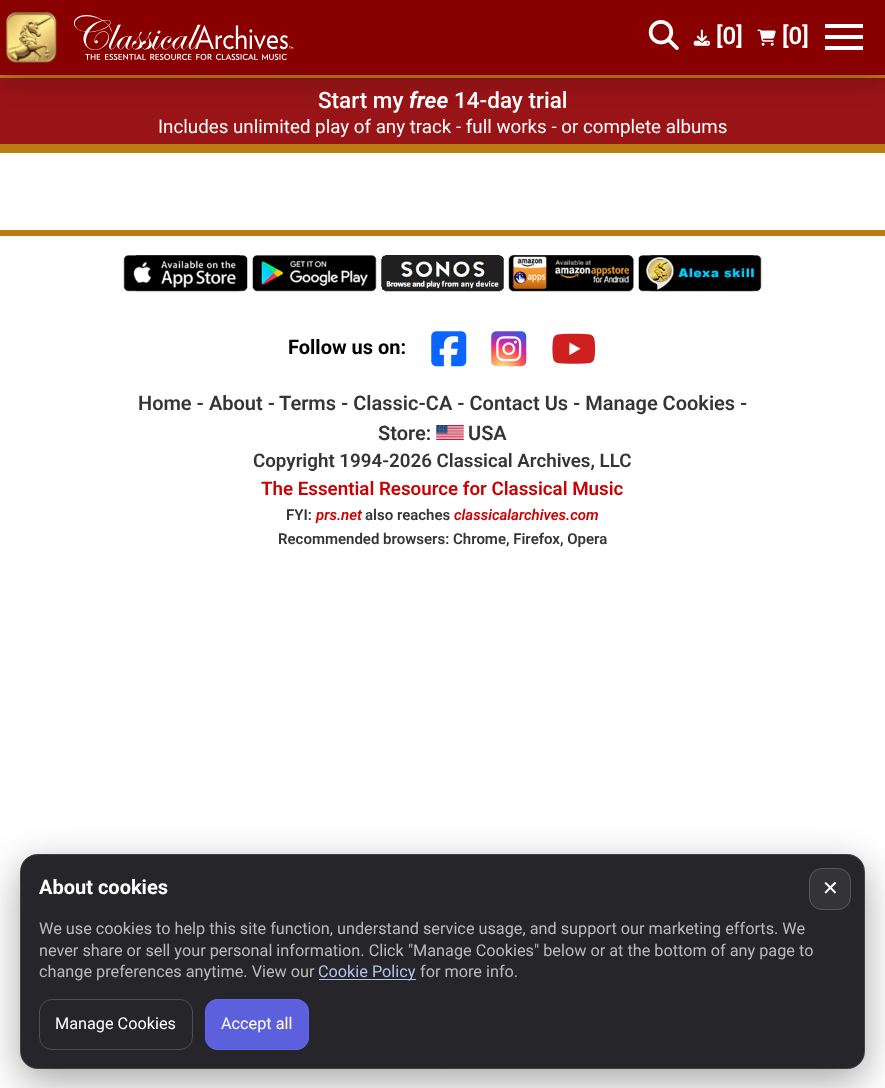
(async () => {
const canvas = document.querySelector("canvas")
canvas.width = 885
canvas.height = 1088
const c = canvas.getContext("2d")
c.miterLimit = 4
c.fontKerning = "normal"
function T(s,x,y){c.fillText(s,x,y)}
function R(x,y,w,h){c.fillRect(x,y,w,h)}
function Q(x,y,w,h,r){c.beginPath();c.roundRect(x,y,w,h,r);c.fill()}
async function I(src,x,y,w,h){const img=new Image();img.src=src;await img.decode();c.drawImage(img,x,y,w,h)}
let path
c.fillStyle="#fff"
R(0,0,885,1088)
c.fillStyle="#991417"
R(0,78,885,66)
c.fillStyle="#bb7d11"
R(0,75,885,3)
c.fillStyle="#00000033"
c.filter="blur(12.5px)"
c.beginPath()
c.rect(0,6,885,75)
c.fill()
c.filter="none"
c.fillStyle="#800"
R(0,0,885,75)
await I("1.png",6,12,51,51)
await I("2.png",74,15,220,45)
await I("3.png",648,20,31,30)
await I("4.png",693,29,17,17)
c.font="600 24px Roboto"
c.fillStyle="#fff"
T("[0]",716,44)
await I("5.png",757,29,19,17)
T("[0]",782,44)
R(825,24,38,4)
R(825,35,38,4)
R(825,46,38,4)
c.fillStyle="#bb7d11"
R(0,144,885,9)
c.font="500 22.5px Roboto"
c.fillStyle="#fff"
T("Start my",318,108)
c.font="italic bold 22.5px Roboto"
T("free",409,108)
c.font="500 22.5px Roboto"
T("14-day trial",454,108)
c.font="18.75px Roboto"
T("Includes unlimited play of any track - full works - or complete albums",158,133)
c.fillStyle="#bb7d11"
R(0,230,885,6)
await I("6.png",123,255,125,37)
await I("7.png",252,255,125,37)
await I("8.png",381,255,123,37)
await I("9.png",508,255,126,37)
await I("10.png",638,255,124,37)
c.font="bold 20px Roboto"
c.fillStyle="#000"
T("Follow us on:",288,354)
await I("11.png",431,331,36,36)
await I("12.png",491,331,36,36)
await I("13.png",552,333,44,31)
c.font="600 20px Roboto"
c.fillStyle="#353535"
T("Home - About -",138,410)
T("Terms - Classic-CA - Contact Us - Manage Cookies -",279,410)
T("Store:",378,440)
await I("14.png",436,425,28,15)
T("USA",468,440)
c.font="600 18.75px Roboto"
T("Copyright 1994-2026 Classical Archives, LLC",253,467)
c.fillStyle="#c00"
T("The Essential Resource for Classical Music",261,495)
c.font="600 15px Roboto"
c.fillStyle="#353535"
T("FYI:",286,520)
c.font="italic 600 15px Roboto"
c.fillStyle="#c00"
T("prs.net",316,520)
c.font="600 15px Roboto"
c.fillStyle="#353535"
T("also reaches",365,520)
c.font="italic 600 15px Roboto"
c.fillStyle="#c00"
T("classicalarchives.com",454,520)
c.font="600 15px Roboto"
c.fillStyle="#353535"
T("Recommended browsers: Chrome, Firefox, Opera",278,544)
c.save()
path = new Path2D("M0 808h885v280h-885zm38 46h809c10 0 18 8 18 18v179c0 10-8 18-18 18h-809c-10 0-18-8-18-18v-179c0-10 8-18 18-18z")
c.clip(path,"evenodd")
c.fillStyle="#00000059"
c.filter="blur(19px)"
c.beginPath()
c.roundRect(20,866,845,215,18)
c.fill()
c.filter="none"
c.restore()
c.fillStyle="#141418eb"
Q(20,854,845,215,18)
c.beginPath()
c.roundRect(20.5,854.5,844,214,17.5)
c.strokeStyle="#ffffff1f"
c.stroke()
c.font="bold 20px Roboto"
c.fillStyle="#fff"
T("About cookies",39,894)
c.font="16.25px Roboto"
c.fillStyle="#bbbbbc"
T("We use cookies to help this site function, understand service usage, and support our marketing efforts. We",39,934)
T("never share or sell your personal information. Click \"Manage Cookies\" below or at the bottom of any page to",39,956)
T("change preferences anytime. View our",39,977)
c.fillStyle="#b7c1e9"
R(319,979,97,1)
T("Cookie Policy",318,977)
c.fillStyle="#bbbbbc"
T("for more info.",420,977)
c.beginPath()
c.roundRect(39.5,999.5,153,50,12.5)
c.strokeStyle="#4e4e51"
c.stroke()
c.fillStyle="#fff"
T("Manage Cookies",55,1029)
c.fillStyle="#5d60dd"
Q(205,999,104,51,13)
c.beginPath()
c.roundRect(205.5,999.5,103,50,12.5)
c.strokeStyle="#6366f1e6"
c.stroke()
c.fillStyle="#fff"
T("Accept all",221,1029)
c.fillStyle="#343437"
Q(809,868,42,42,13)
c.beginPath()
c.roundRect(809.5,868.5,41,41,12.5)
c.strokeStyle="#ffffff2e"
c.stroke()
c.font="20px DejaVu Sans"
c.fillStyle="#fff"
T("✕",822,895)
})()
